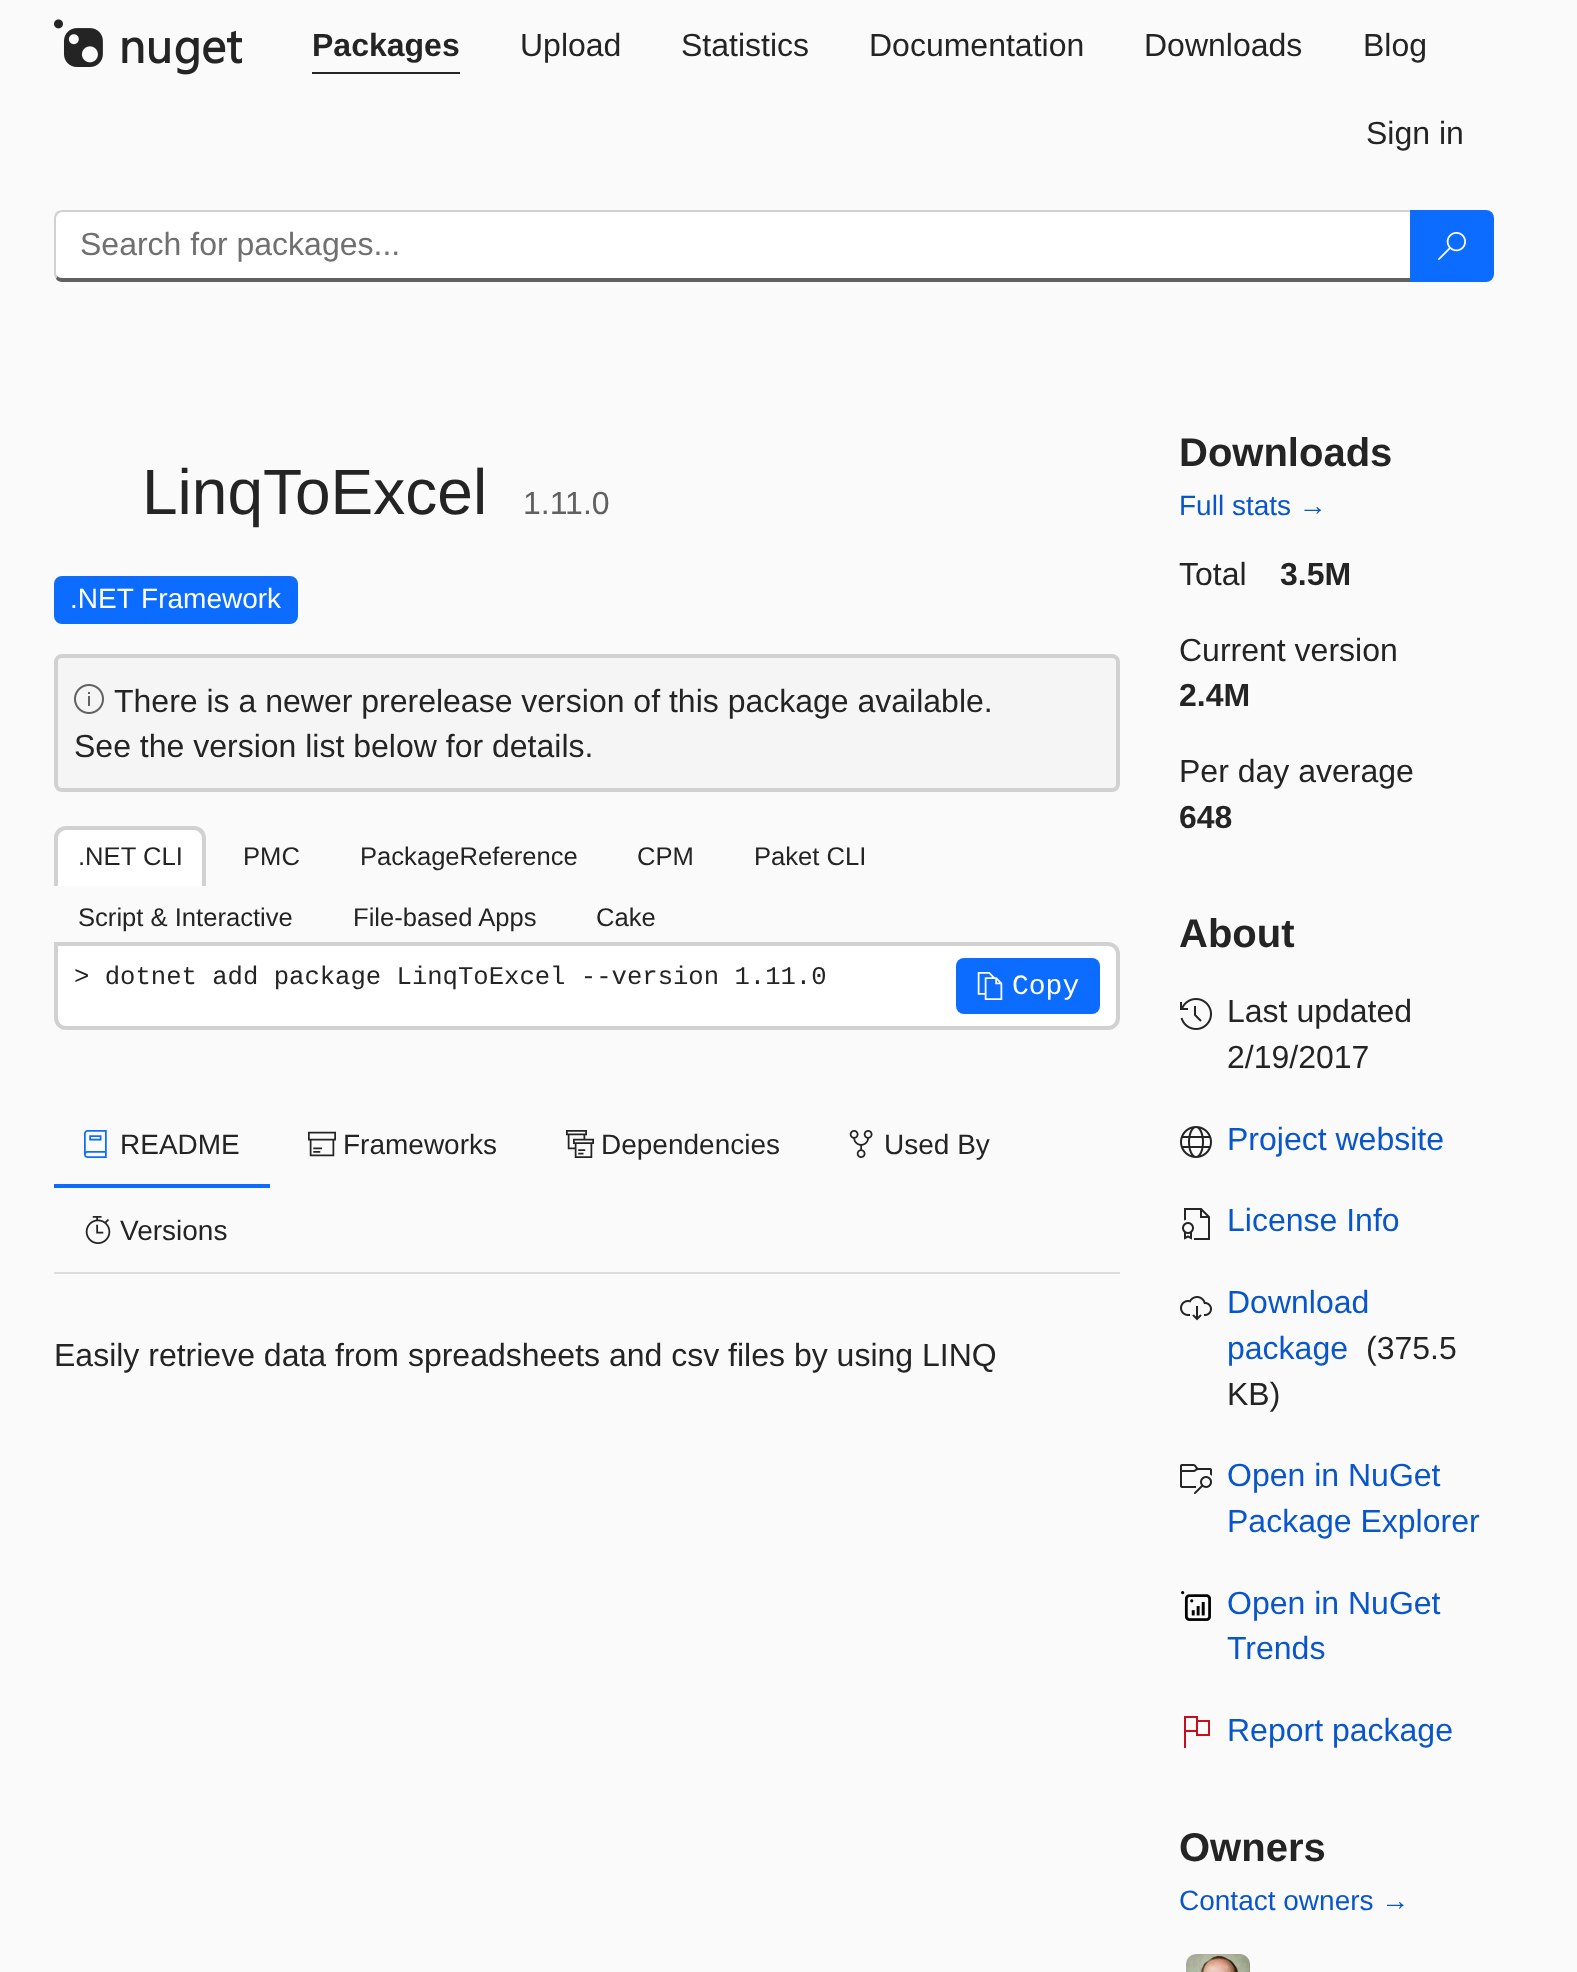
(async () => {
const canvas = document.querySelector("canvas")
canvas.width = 1577
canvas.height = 1972
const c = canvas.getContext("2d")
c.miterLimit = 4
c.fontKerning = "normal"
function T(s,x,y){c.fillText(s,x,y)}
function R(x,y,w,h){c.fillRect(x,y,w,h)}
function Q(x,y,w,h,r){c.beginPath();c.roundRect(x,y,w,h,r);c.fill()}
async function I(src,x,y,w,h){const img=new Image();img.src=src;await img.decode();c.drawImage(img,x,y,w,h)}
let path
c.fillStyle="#fafafa"
R(0,0,1577,1972)
await I("1.png",54,19,188,56)
c.font="bold 32px Liberation Sans"
c.fillStyle="#242424"
T("Packages",312,56)
R(312,72,148,2)
c.font="32px Liberation Sans"
T("Upload",520,56)
T("Statistics",681,56)
T("Documentation",869,56)
T("Downloads",1144,56)
T("Blog",1363,56)
T("Sign in",1366,144)
c.fillStyle="#fff"
path = new Path2D("M62 212h1348v66h-1348c-3 0-6-2-6-4v-56c0-3 3-6 6-6z")
c.fill(path)
c.fillStyle="#d1d1d1"
path = new Path2D("M62 210c-2 0-4 1-6 2l2 2c1-1 2-2 4-2h1348l2-2z")
c.fill(path)
c.fillStyle="#616161"
path = new Path2D("M1412 282l-2-4h-1348c-2 0-4-1-5-2l-1 3c1 2 4 3 6 3z")
c.fill(path)
c.fillStyle="#d1d1d1"
path = new Path2D("M54 218v56c0 2 1 3 2 5l1-3l-1-2v-57l2-3l-2-2c-1 2-2 4-2 6z")
c.fill(path)
c.fillStyle="#707070"
T("Search for packages...",80,255)
c.fillStyle="#0b6cff"
c.beginPath()
c.roundRect(1410,210,84,72,[0,8,8,0])
c.fill()
await I("2.png",1438,232,28,28)
c.font="64px Liberation Sans"
c.fillStyle="#242424"
T("LinqToExcel",142,514)
c.font="32px Liberation Sans"
c.fillStyle="#616161"
T("1.11.0",523,514)
c.fillStyle="#0b6cff"
Q(54,576,244,48,8)
c.font="28px Liberation Sans"
c.fillStyle="#fff"
T(".NET Framework",70,608)
c.fillStyle="#f5f5f5"
c.beginPath()
c.roundRect(56,656,1062,134,6)
c.fill()
c.strokeStyle="#d1d1d1"
c.lineWidth=4
c.stroke()
await I("3.png",74,684,30,30)
c.font="32px Liberation Sans"
c.fillStyle="#242424"
T("There is a newer prerelease version of this package available.",114,712)
T("See the version list below for details.",74,757)
c.fillStyle="#fff"
c.beginPath()
c.roundRect(54,826,152,60,[12,12,0,0])
c.fill()
c.fillStyle="#d1d1d1"
path = new Path2D("M66 826h128c7 0 12 5 12 12v48h-152v-48c0-7 5-12 12-12zm0 4h128c4 0 8 4 8 8v48h-144v-48c0-4 4-8 8-8z")
c.fill(path,"evenodd")
c.font="25.6px Liberation Sans"
c.fillStyle="#242424"
T(".NET CLI",78,865)
T("PMC",243,865)
T("PackageReference",360,865)
T("CPM",637,865)
T("Paket CLI",754,865)
T("Script & Interactive",78,926)
T("File-based Apps",353,926)
T("Cake",596,926)
c.fillStyle="#fff"
c.beginPath()
c.roundRect(56,944,1062,84,[0,10,10,10])
c.fill()
c.stroke()
c.font="25.6px Liberation Mono"
c.fillStyle="#242424"
T("> dotnet add package LinqToExcel --version 1.11.0",74,984)
c.fillStyle="#0b6cff"
Q(956,958,144,56,8)
await I("4.png",977,972,26,28)
c.font="28px Liberation Mono"
c.fillStyle="#fff"
T("Copy",1012,994)
c.fillStyle="#ddd"
R(54,1272,1066,2)
c.fillStyle="#0b6cff"
R(54,1184,216,4)
await I("5.png",84,1130,23,28)
c.font="28px Liberation Sans"
c.fillStyle="#242424"
T("README",120,1154)
await I("6.png",308,1131,28,26)
T("Frameworks",343,1154)
await I("7.png",566,1130,28,28)
T("Dependencies",601,1154)
await I("8.png",849,1130,24,28)
T("Used By",884,1154)
await I("9.png",85,1216,26,28)
T("Versions",120,1240)
c.font="32px Liberation Sans"
T("Easily retrieve data from spreadsheets and csv files by using LINQ",54,1366)
c.font="bold 40px Liberation Sans"
T("Downloads",1179,466)
c.font="28px Liberation Sans"
c.fillStyle="#0956cc"
T("Full stats →",1179,515)
c.font="32px Liberation Sans"
c.fillStyle="#242424"
T("Total",1179,585)
c.font="bold 32px Liberation Sans"
T("3.5M",1280,585)
c.font="32px Liberation Sans"
T("Current version",1179,661)
c.font="bold 32px Liberation Sans"
T("2.4M",1179,706)
c.font="32px Liberation Sans"
T("Per day average",1179,782)
c.font="bold 32px Liberation Sans"
T("648",1179,828)
c.font="bold 40px Liberation Sans"
T("About",1179,947)
await I("10.png",1180,998,32,32)
c.font="32px Liberation Sans"
T("Last updated",1227,1022)
T("2/19/2017",1227,1068)
await I("11.png",1180,1126,32,32)
c.fillStyle="#0956cc"
T("Project website",1227,1150)
await I("12.png",1182,1208,28,32)
T("License Info",1227,1231)
await I("13.png",1180,1296,32,25)
T("Download",1227,1313)
T("package",1227,1359)
c.fillStyle="#242424"
T("(375.5",1366,1359)
T("KB)",1227,1405)
await I("14.png",1180,1464,32,30)
c.fillStyle="#0956cc"
T("Open in NuGet",1227,1486)
T("Package Explorer",1227,1532)
await I("15.png",1181,1591,30,30)
T("Open in NuGet",1227,1614)
T("Trends",1227,1659)
await I("16.png",1184,1716,26,32)
T("Report package",1227,1741)
c.font="bold 40px Liberation Sans"
c.fillStyle="#242424"
T("Owners",1179,1861)
c.font="28px Liberation Sans"
c.fillStyle="#0956cc"
T("Contact owners →",1179,1910)
await I("17.png",1186,1954,64,18)
})()
